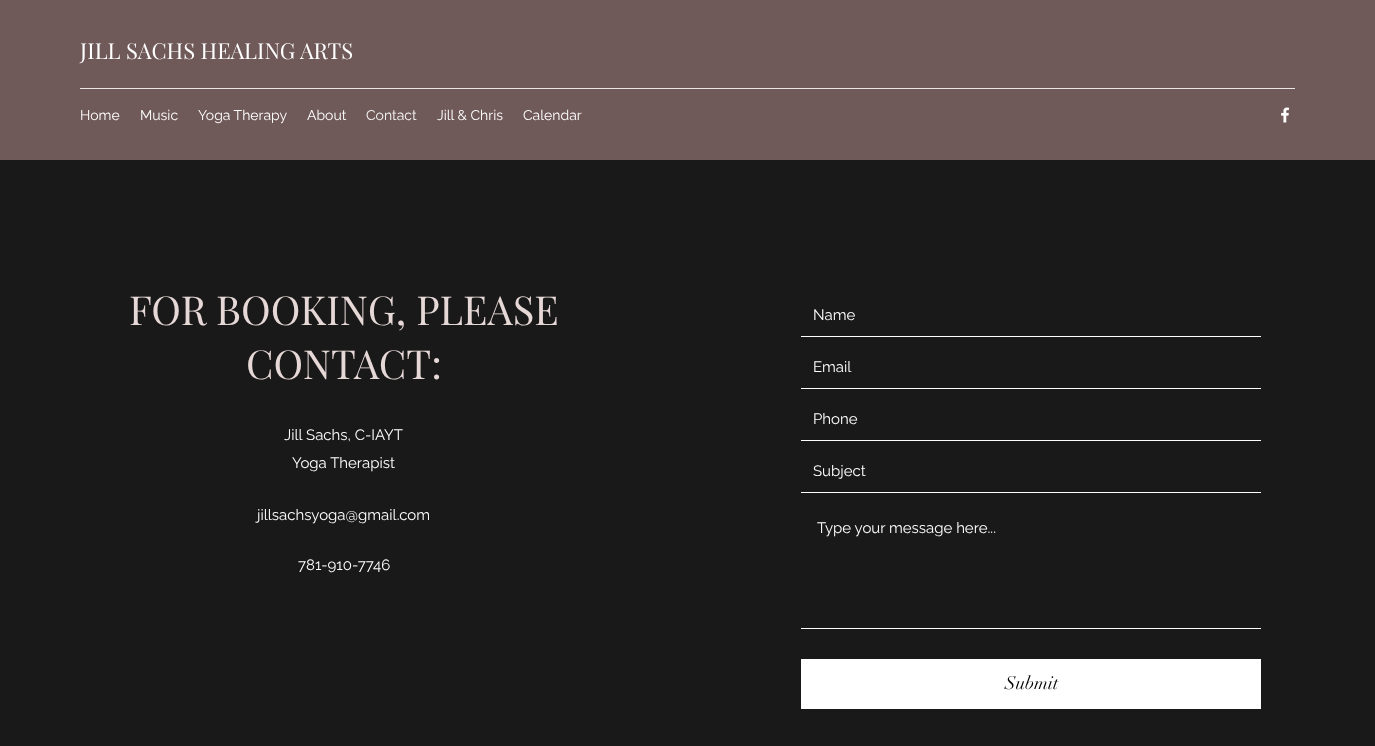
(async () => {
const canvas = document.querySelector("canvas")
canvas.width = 1375
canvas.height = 746
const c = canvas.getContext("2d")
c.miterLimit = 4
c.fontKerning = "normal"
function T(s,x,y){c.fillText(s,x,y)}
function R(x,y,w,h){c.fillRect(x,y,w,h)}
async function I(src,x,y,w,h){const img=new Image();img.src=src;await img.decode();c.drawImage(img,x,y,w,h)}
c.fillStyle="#191919"
R(0,0,1375,746)
c.fillStyle="#705959"
R(0,0,1375,160)
c.font="22px Playfair Display"
c.fillStyle="#fff"
T("JILL SACHS HEALING ARTS",80,59)
c.fillStyle="#eae6e6"
R(80,88,1215,1)
c.font="14px Raleway"
c.fillStyle="#fff"
T("Home",80,120)
T("Music",140,120)
T("Yoga Therapy",198,120)
T("About",307,120)
c.fillStyle="#f7f7f7"
T("Contact",366,120)
c.fillStyle="#fff"
T("Jill & Chris",437,120)
T("Calendar",523,120)
await I("1.png",1281,107,9,16)
c.font="40px Playfair Display"
c.fillStyle="#e6d8d7"
T("FOR BOOKING, PLEASE",129,325)
T("CONTACT:",246,379)
c.font="15px Raleway"
c.fillStyle="#fff"
T("Jill Sachs, C-IAYT",284,440)
T("Yoga Therapist",292,468)
T("jillsachsyoga@gmail.com",257,520)
T("781-910-7746",298,570)
R(801,336,460,1)
T("Name",813,320)
R(801,388,460,1)
T("Email",813,372)
R(801,440,460,1)
T("Phone",813,424)
R(801,492,460,1)
T("Subject",813,476)
R(801,628,460,1)
T("Type your message here...",817,533)
R(801,659,460,50)
c.font="18px didot"
c.fillStyle="#000"
T("Submit",1005,689)
})()
